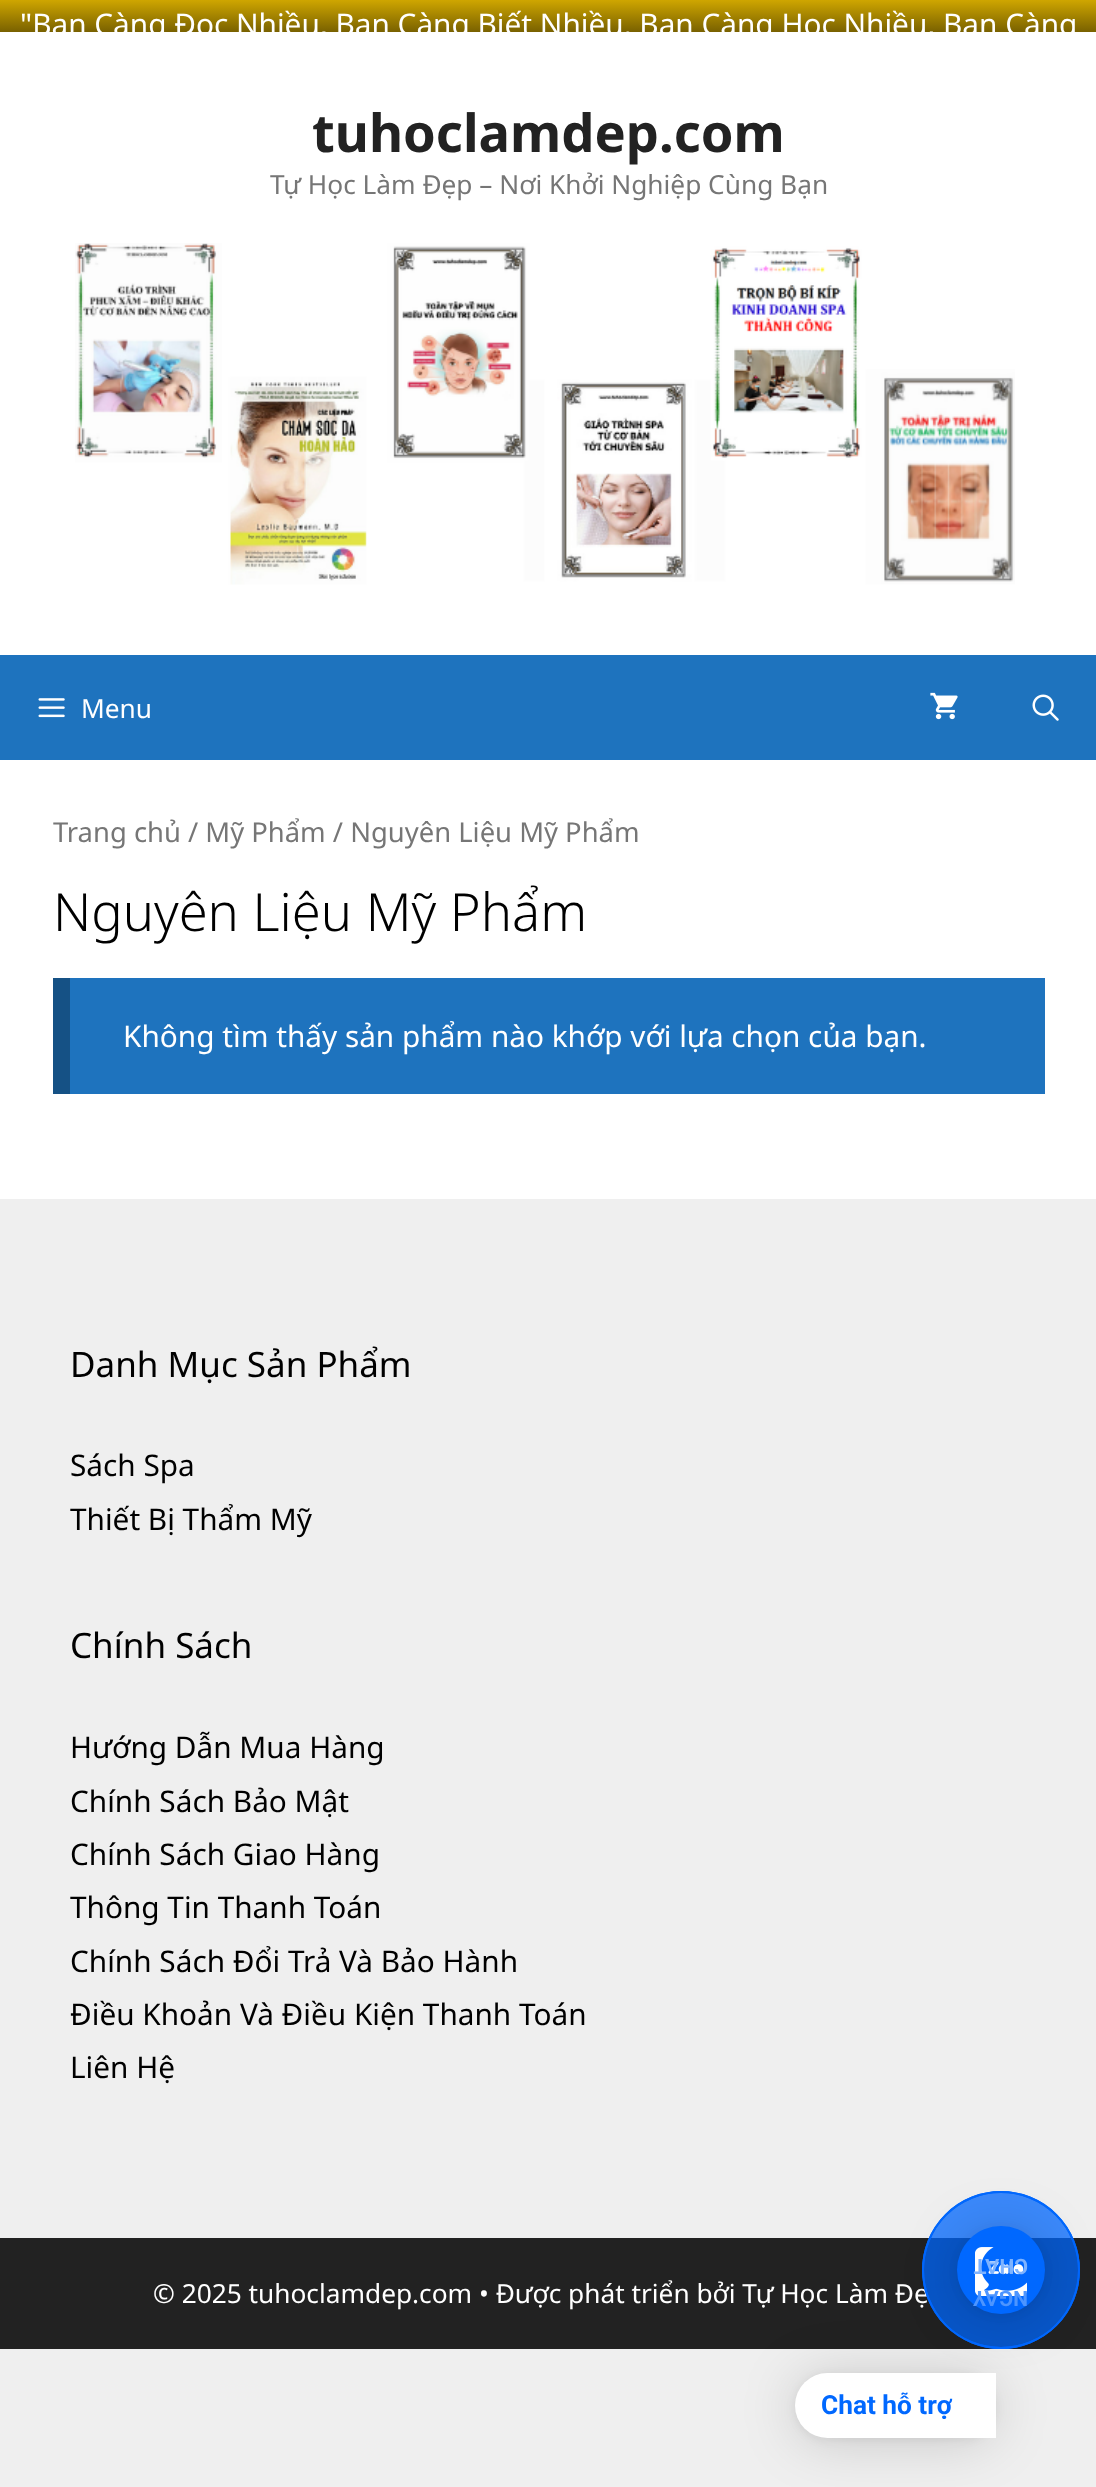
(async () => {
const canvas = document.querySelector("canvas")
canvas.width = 1096
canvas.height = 2487
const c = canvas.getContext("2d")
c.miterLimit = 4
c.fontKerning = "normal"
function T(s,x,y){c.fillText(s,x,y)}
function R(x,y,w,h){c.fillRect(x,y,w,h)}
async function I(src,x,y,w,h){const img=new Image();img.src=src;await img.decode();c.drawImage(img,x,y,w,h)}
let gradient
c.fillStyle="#efefef"
R(0,0,1096,2487)
gradient = c.createLinearGradient(549,0,549,77)
gradient.addColorStop(0,"#cfa600")
gradient.addColorStop(1,"#000")
c.fillStyle = gradient
R(0,0,1096,32)
c.save()
c.beginPath()
c.rect(0,0,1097,32)
c.clip()
c.font="29.75px Noto Sans"
c.fillStyle="#fff"
T("\"Bạn Càng Đọc Nhiều, Bạn Càng Biết Nhiều. Bạn Càng Học Nhiều, Bạn Càng",20,35)
c.restore()
c.fillStyle="#fff"
R(0,32,1096,623)
c.font="bold 52.5px Noto Sans"
c.fillStyle="#222"
T("tuhoclamdep.com",312,152)
c.font="26.25px Noto Sans"
c.fillStyle="#767676"
T("Tự Học Làm Đẹp – Nơi Khởi Nghiệp Cùng Bạn",270,194)
await I("1.png",75,243,940,342)
c.fillStyle="#1e73be"
R(0,655,1096,105)
await I("2.png",38,698,27,20)
c.fillStyle="#fff"
T("Menu",81,718)
await I("3.png",930,692,28,28)
await I("4.png",1032,694,27,27)
R(0,760,1096,439)
c.font="27.4px Noto Sans"
c.fillStyle="#767676"
T("Trang chủ / Mỹ Phẩm / Nguyên Liệu Mỹ Phẩm",53,842)
c.font="300 52.5px Noto Sans"
c.fillStyle="#000"
T("Nguyên Liệu Mỹ Phẩm",53,931)
c.fillStyle="#1e73be"
R(70,978,975,116)
c.fillStyle="#155185"
R(53,978,17,116)
c.font="29.75px Noto Sans"
c.fillStyle="#fff"
T("Không tìm thấy sản phẩm nào khớp với lựa chọn của bạn.",123,1047)
c.font="35px Noto Sans"
c.fillStyle="#000"
T("Danh Mục Sản Phẩm",70,1377)
c.font="29.75px Noto Sans"
T("Sách Spa",70,1476)
T("Thiết Bị Thẩm Mỹ",70,1530)
c.font="35px Noto Sans"
T("Chính Sách",70,1658)
c.font="29.75px Noto Sans"
T("Hướng Dẫn Mua Hàng",70,1758)
T("Chính Sách Bảo Mật",70,1812)
T("Chính Sách Giao Hàng",70,1865)
T("Thông Tin Thanh Toán",70,1918)
T("Chính Sách Đổi Trả Và Bảo Hành",70,1972)
T("Điều Khoản Và Điều Kiện Thanh Toán",70,2025)
T("Liên Hệ",70,2078)
c.fillStyle="#222"
R(0,2238,1096,111)
c.font="26.25px Noto Sans"
c.fillStyle="#fff"
T("© 2025 tuhoclamdep.com • Được phát triển bởi Tự Học Làm Đẹ",153,2303)
c.fillStyle="#00000029"
c.filter="blur(28px)"
c.beginPath()
c.roundRect(795,2377,201,64,32)
c.fill()
c.filter="none"
c.fillStyle="#0068ff80"
c.beginPath()
c.arc(1001,2270,78,0,7)
c.fill()
c.strokeStyle="#0068ff"
c.lineWidth=2
c.stroke()
c.beginPath()
c.arc(1001,2270,78,0,7)
c.fill()
c.stroke()
c.fillStyle="#0000000f"
c.filter="blur(5px)"
c.beginPath()
c.roundRect(795,2375,201,65,32.5)
c.fill()
c.filter="none"
c.fillStyle="#fff"
c.beginPath()
c.roundRect(795,2373,201,65,[32.5,0,0,32.5])
c.fill()
c.fillStyle="#00000029"
c.filter="blur(28px)"
c.beginPath()
c.roundRect(957,2230,88,87,43.5)
c.fill()
c.filter="none"
c.fillStyle="#0000000f"
c.filter="blur(5px)"
c.beginPath()
c.roundRect(957,2228,88,87,43.5)
c.fill()
c.filter="none"
c.fillStyle="#0068ff"
c.beginPath()
c.arc(1001,2270,44,0,7)
c.fill()
await I("5.png",975,2247,52,49)
c.font="bold 21px Roboto"
c.fillStyle="#7eb3ff"
c.save()
c.translate(1028,2259)
c.rotate(180 * Math.PI / 180)
c.fillText("CHAT",0,0)
c.restore()
c.fillStyle="#4d95ff"
c.save()
c.translate(1028,2291)
c.rotate(180 * Math.PI / 180)
c.fillText("NGAY",0,0)
c.restore()
c.font="bold 26.25px Roboto"
c.fillStyle="#0068ff"
T("Chat hỗ trợ",821,2414)
})()
